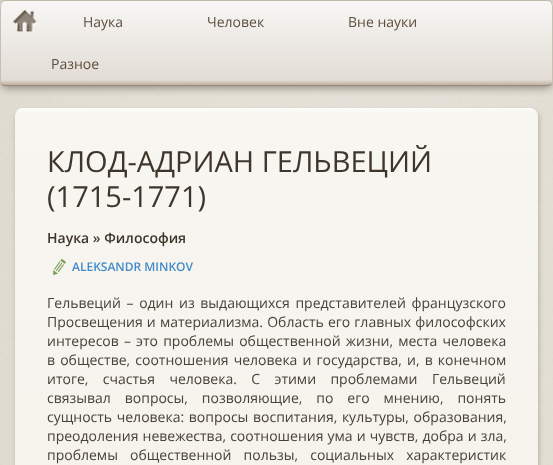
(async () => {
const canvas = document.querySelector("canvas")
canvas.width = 553
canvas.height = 465
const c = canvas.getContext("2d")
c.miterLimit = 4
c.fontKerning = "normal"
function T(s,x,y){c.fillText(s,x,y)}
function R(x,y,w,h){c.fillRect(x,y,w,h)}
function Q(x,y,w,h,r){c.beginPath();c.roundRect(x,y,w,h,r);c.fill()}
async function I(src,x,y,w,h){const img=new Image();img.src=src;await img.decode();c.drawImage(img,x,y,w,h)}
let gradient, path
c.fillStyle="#fff"
R(0,0,553,465)
await I("1.png",0,0,553,465)
c.fillStyle="#80776a"
c.filter="blur(5px)"
c.beginPath()
c.roundRect(1,3,551,84,5)
c.fill()
c.filter="none"
c.save()
c.beginPath()
c.roundRect(0,0,553,86,6)
c.clip()
gradient = c.createLinearGradient(277,1,277,85)
gradient.addColorStop(0,"#f8f7f5")
gradient.addColorStop(.94,"#e2dcd5")
gradient.addColorStop(1,"#bfb09f")
c.fillStyle = gradient
R(0,1,553,84)
c.restore()
path = new Path2D("M2 2c1-1 2.5-1.5 4-1.5h541c1.5 0 3 .5 4 1.5")
c.strokeStyle="#c0b8a9"
c.stroke(path)
path = new Path2D("M551 2l1.5 3.5v75l-1.5 3.5")
c.strokeStyle="#c7bfb2"
c.stroke(path)
path = new Path2D("M551 84c-1 1-2.5 1.5-4 1.5h-541c-1.5 0-3-.5-4-1.5")
c.strokeStyle="#978a7a"
c.stroke(path)
path = new Path2D("M2 84l-1.5-3.5v-75l1.5-3.5")
c.strokeStyle="#c7bfb2"
c.stroke(path)
await I("2.png",13,9,24,24)
c.font="14px Open Sans"
c.fillStyle="#5d4f3e"
T("Наука",83,27)
T("Человек",207,27)
T("Вне науки",348,27)
T("Разное",51,69)
c.fillStyle="#b5ada2"
c.filter="blur(2.5px)"
c.beginPath()
c.roundRect(16,111,523,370,8)
c.fill()
c.filter="none"
gradient = c.createLinearGradient(276,108,277,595)
gradient.addColorStop(0,"#fefefc")
gradient.addColorStop(.01,"#f8f6f1")
gradient.addColorStop(1,"#f5f2eb")
c.fillStyle = gradient
Q(15,108,523,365,8)
c.font="29px Open Sans"
c.fillStyle="#3e362b"
T("КЛОД-АДРИАН ГЕЛЬВЕЦИЙ",47,172)
T("(1715-1771)",47,207)
c.font="600 14px Open Sans"
T("Наука » Философия",47,243)
await I("3.png",53,259,13,16)
c.font="600 12px Open Sans"
c.fillStyle="#428bca"
T("ALEKSANDR MINKOV",72,271)
c.wordSpacing="2px"
c.font="14px Open Sans"
c.fillStyle="#47423a"
T("Гельвеций – один из выдающихся представителей французского",47,308)
c.wordSpacing="0.5px"
T("Просвещения и материализма. Область его главных философских",47,327)
c.wordSpacing="1.5px"
T("интересов – это проблемы общественной жизни, места человека",47,346)
T("в обществе, соотношения человека и государства, и, в конечном",47,365)
c.wordSpacing="10.75px"
T("итоге, счастья человека. С этими проблемами Гельвеций",47,384)
c.wordSpacing="10.25px"
T("связывал вопросы, позволяющие, по его мнению, понять",47,403)
c.wordSpacing="1px"
T("сущность человека: вопросы воспитания, культуры, образования,",47,422)
c.wordSpacing="0.5px"
T("преодоления невежества, соотношения ума и чувств, добра и зла,",47,441)
c.wordSpacing="8.5px"
T("проблемы общественной пользы, социальных характеристик",47,460)
})()
